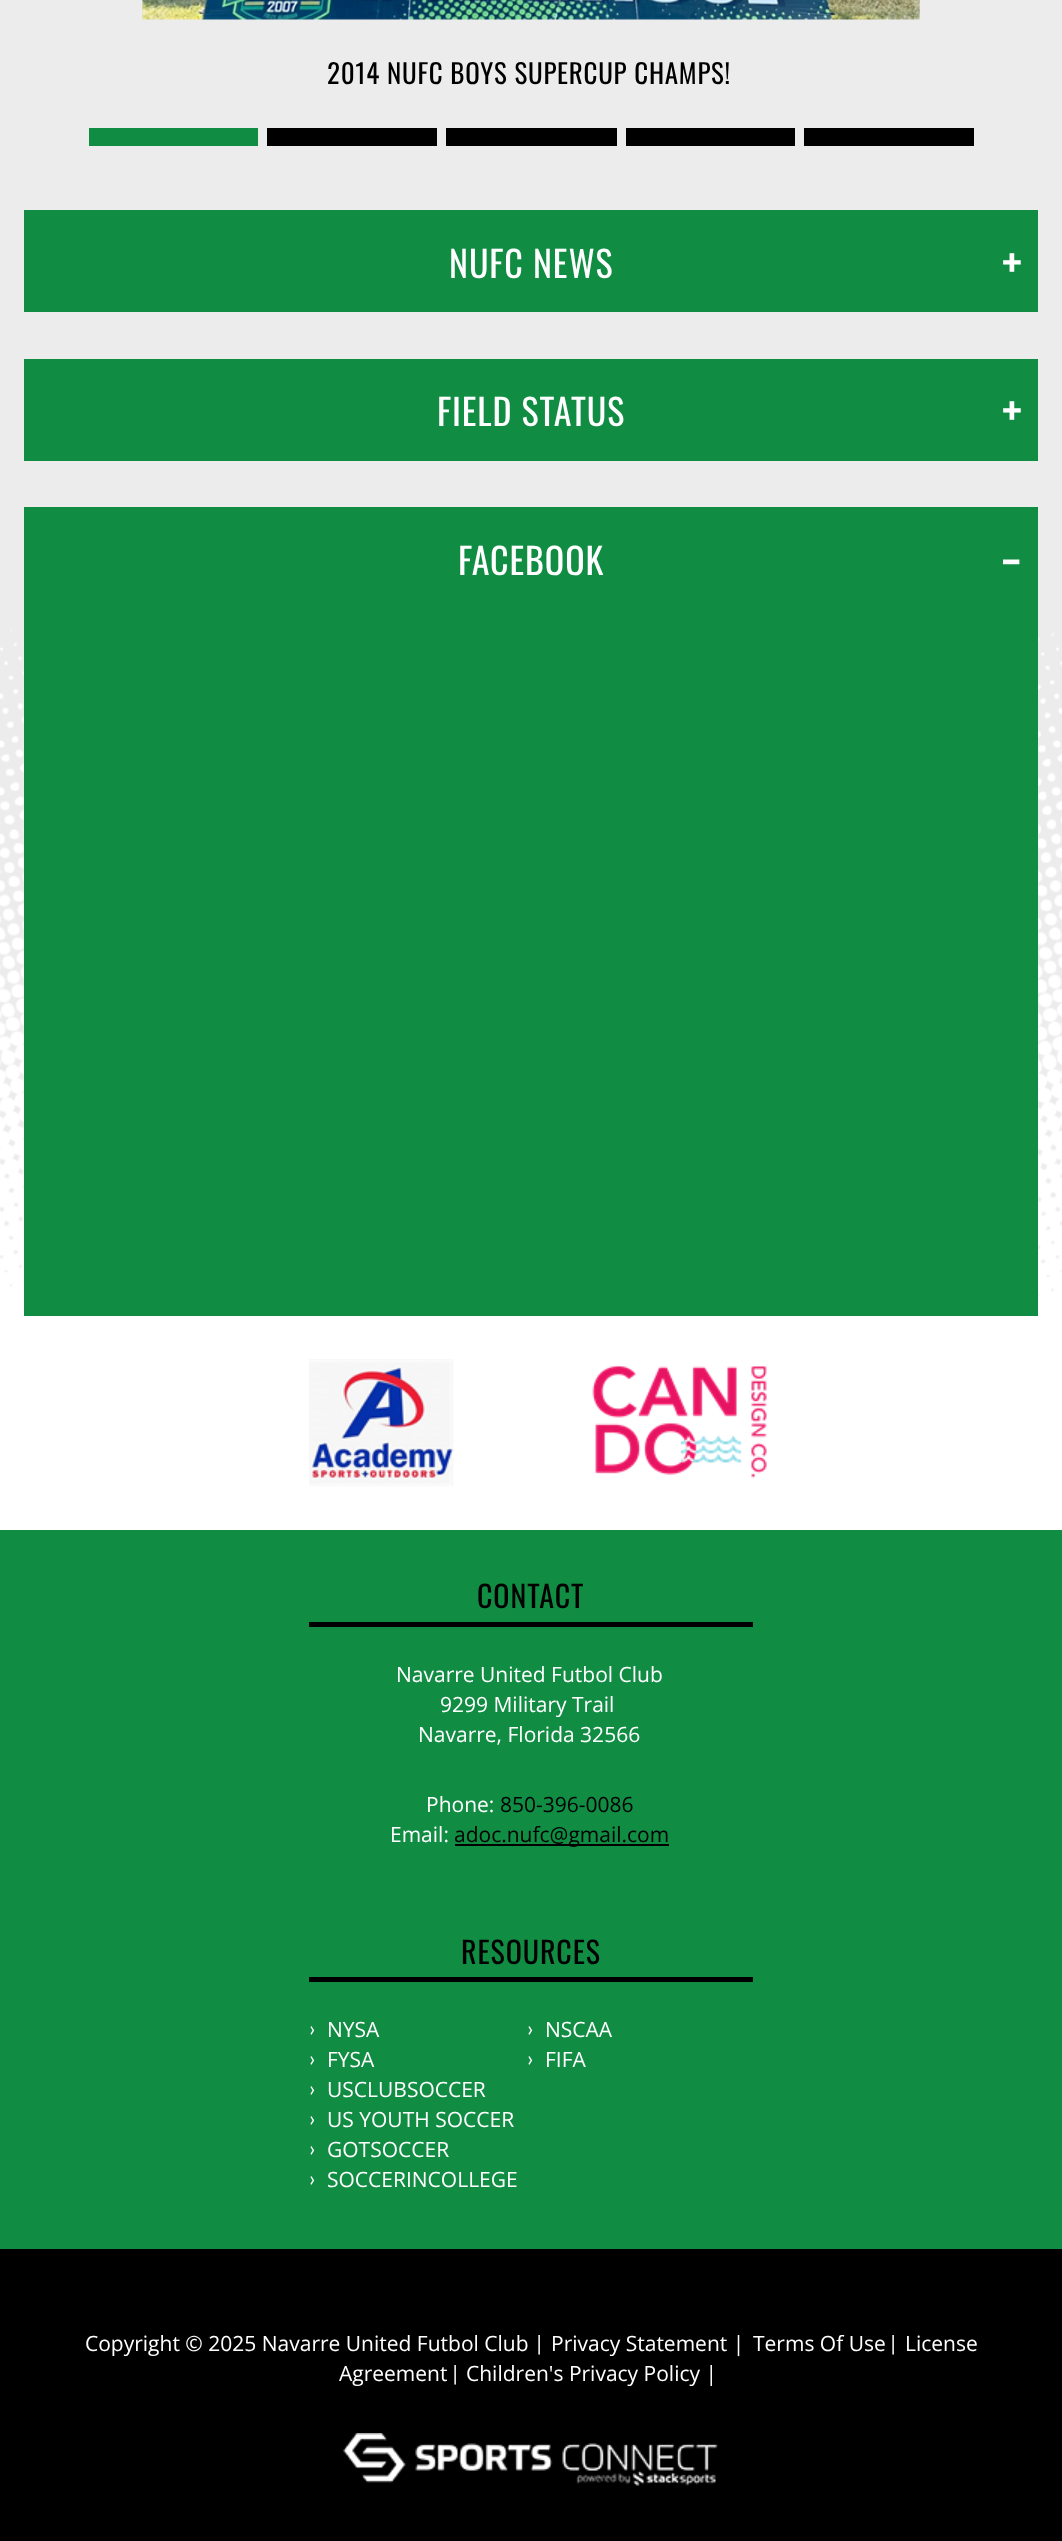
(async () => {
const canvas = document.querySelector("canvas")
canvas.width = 1062
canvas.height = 2541
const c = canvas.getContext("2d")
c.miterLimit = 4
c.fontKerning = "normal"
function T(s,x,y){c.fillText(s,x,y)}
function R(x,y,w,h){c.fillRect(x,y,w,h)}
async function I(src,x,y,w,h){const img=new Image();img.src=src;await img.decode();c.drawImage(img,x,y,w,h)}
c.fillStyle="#ececec"
R(0,0,1062,2541)
await I("1.png",0,629,1062,687)
await I("2.png",142,0,778,20)
c.letterSpacing="0.75px"
c.font="27px Oswald"
c.fillStyle="#000"
T("2014 NUFC BOYS SUPERCUP CHAMPS!",327,84)
c.fillStyle="#108c43"
R(89,128,169,18)
c.fillStyle="#000"
R(267,128,170,18)
R(446,128,171,18)
R(626,128,169,18)
R(804,128,170,18)
c.fillStyle="#108c43"
R(24,210,1014,102)
c.letterSpacing="0.9px"
c.font="36px Oswald"
c.fillStyle="#fff"
T("NUFC NEWS",449,278)
c.font="600 45px Oswald"
T("+",1002,281)
c.fillStyle="#108c43"
R(24,359,1014,102)
c.font="36px Oswald"
c.fillStyle="#fff"
T("FIELD STATUS",437,426)
c.font="600 45px Oswald"
T("+",1002,429)
c.fillStyle="#108c43"
R(24,507,1014,809)
c.font="36px Oswald"
c.fillStyle="#fff"
T("FACEBOOK",458,575)
c.font="600 45px Oswald"
T("_",1003,557)
R(0,1316,1062,214)
await I("3.png",309,1359,145,127)
await I("4.png",592,1365,175,113)
c.fillStyle="#108c43"
R(0,1530,1062,719)
c.font="30px Oswald"
c.fillStyle="#000"
T("CONTACT",477,1608)
R(309,1622,444,5)
c.letterSpacing="0px"
c.font="21px Open Sans"
c.fillStyle="#fff"
T("Navarre United Futbol Club",396,1682)
T("9299 Military Trail",440,1712)
T("Navarre, Florida 32566",418,1742)
T("Phone:",426,1812)
c.fillStyle="#000"
T("850-396-0086",500,1812)
c.fillStyle="#fff"
T("Email:",390,1842)
c.fillStyle="#000"
R(455,1844,214,2)
T("adoc.nufc@gmail.com",454,1842)
c.letterSpacing="0.9px"
c.font="30px Oswald"
T("RESOURCES",461,1964)
R(309,1977,444,5)
c.letterSpacing="0px"
c.font="21px Lato"
c.fillStyle="#fff"
T("›",309,2036)
c.font="21px Open Sans"
T("NYSA",327,2037)
c.font="21px Lato"
T("›",309,2066)
c.font="21px Open Sans"
T("FYSA",327,2067)
c.font="21px Lato"
T("›",309,2096)
c.font="21px Open Sans"
T("USCLUBSOCCER",327,2097)
c.font="21px Lato"
T("›",309,2126)
c.font="21px Open Sans"
T("US YOUTH SOCCER",327,2127)
c.font="21px Lato"
T("›",309,2156)
c.font="21px Open Sans"
T("GOTSOCCER",327,2157)
c.font="21px Lato"
T("›",309,2186)
c.font="21px Open Sans"
T("SOCCERINCOLLEGE",327,2187)
c.font="21px Lato"
T("›",527,2036)
c.font="21px Open Sans"
T("NSCAA",545,2037)
c.font="21px Lato"
T("›",527,2066)
c.font="21px Open Sans"
T("FIFA",545,2067)
c.fillStyle="#000"
R(0,2249,1062,292)
c.fillStyle="#fff"
T("Copyright © 2025 Navarre United Futbol Club",85,2351)
c.font="21px Lato"
T("|",536,2351)
c.font="21px Open Sans"
T("Privacy Statement |",551,2351)
T("Terms Of Use",753,2351)
c.font="21px Lato"
T("|",890,2351)
c.font="21px Open Sans"
T("License",905,2351)
T("Agreement",339,2381)
c.font="21px Lato"
T("|",452,2381)
c.font="21px Open Sans"
T("Children's Privacy Policy |",466,2381)
await I("5.png",343,2433,375,53)
})()
